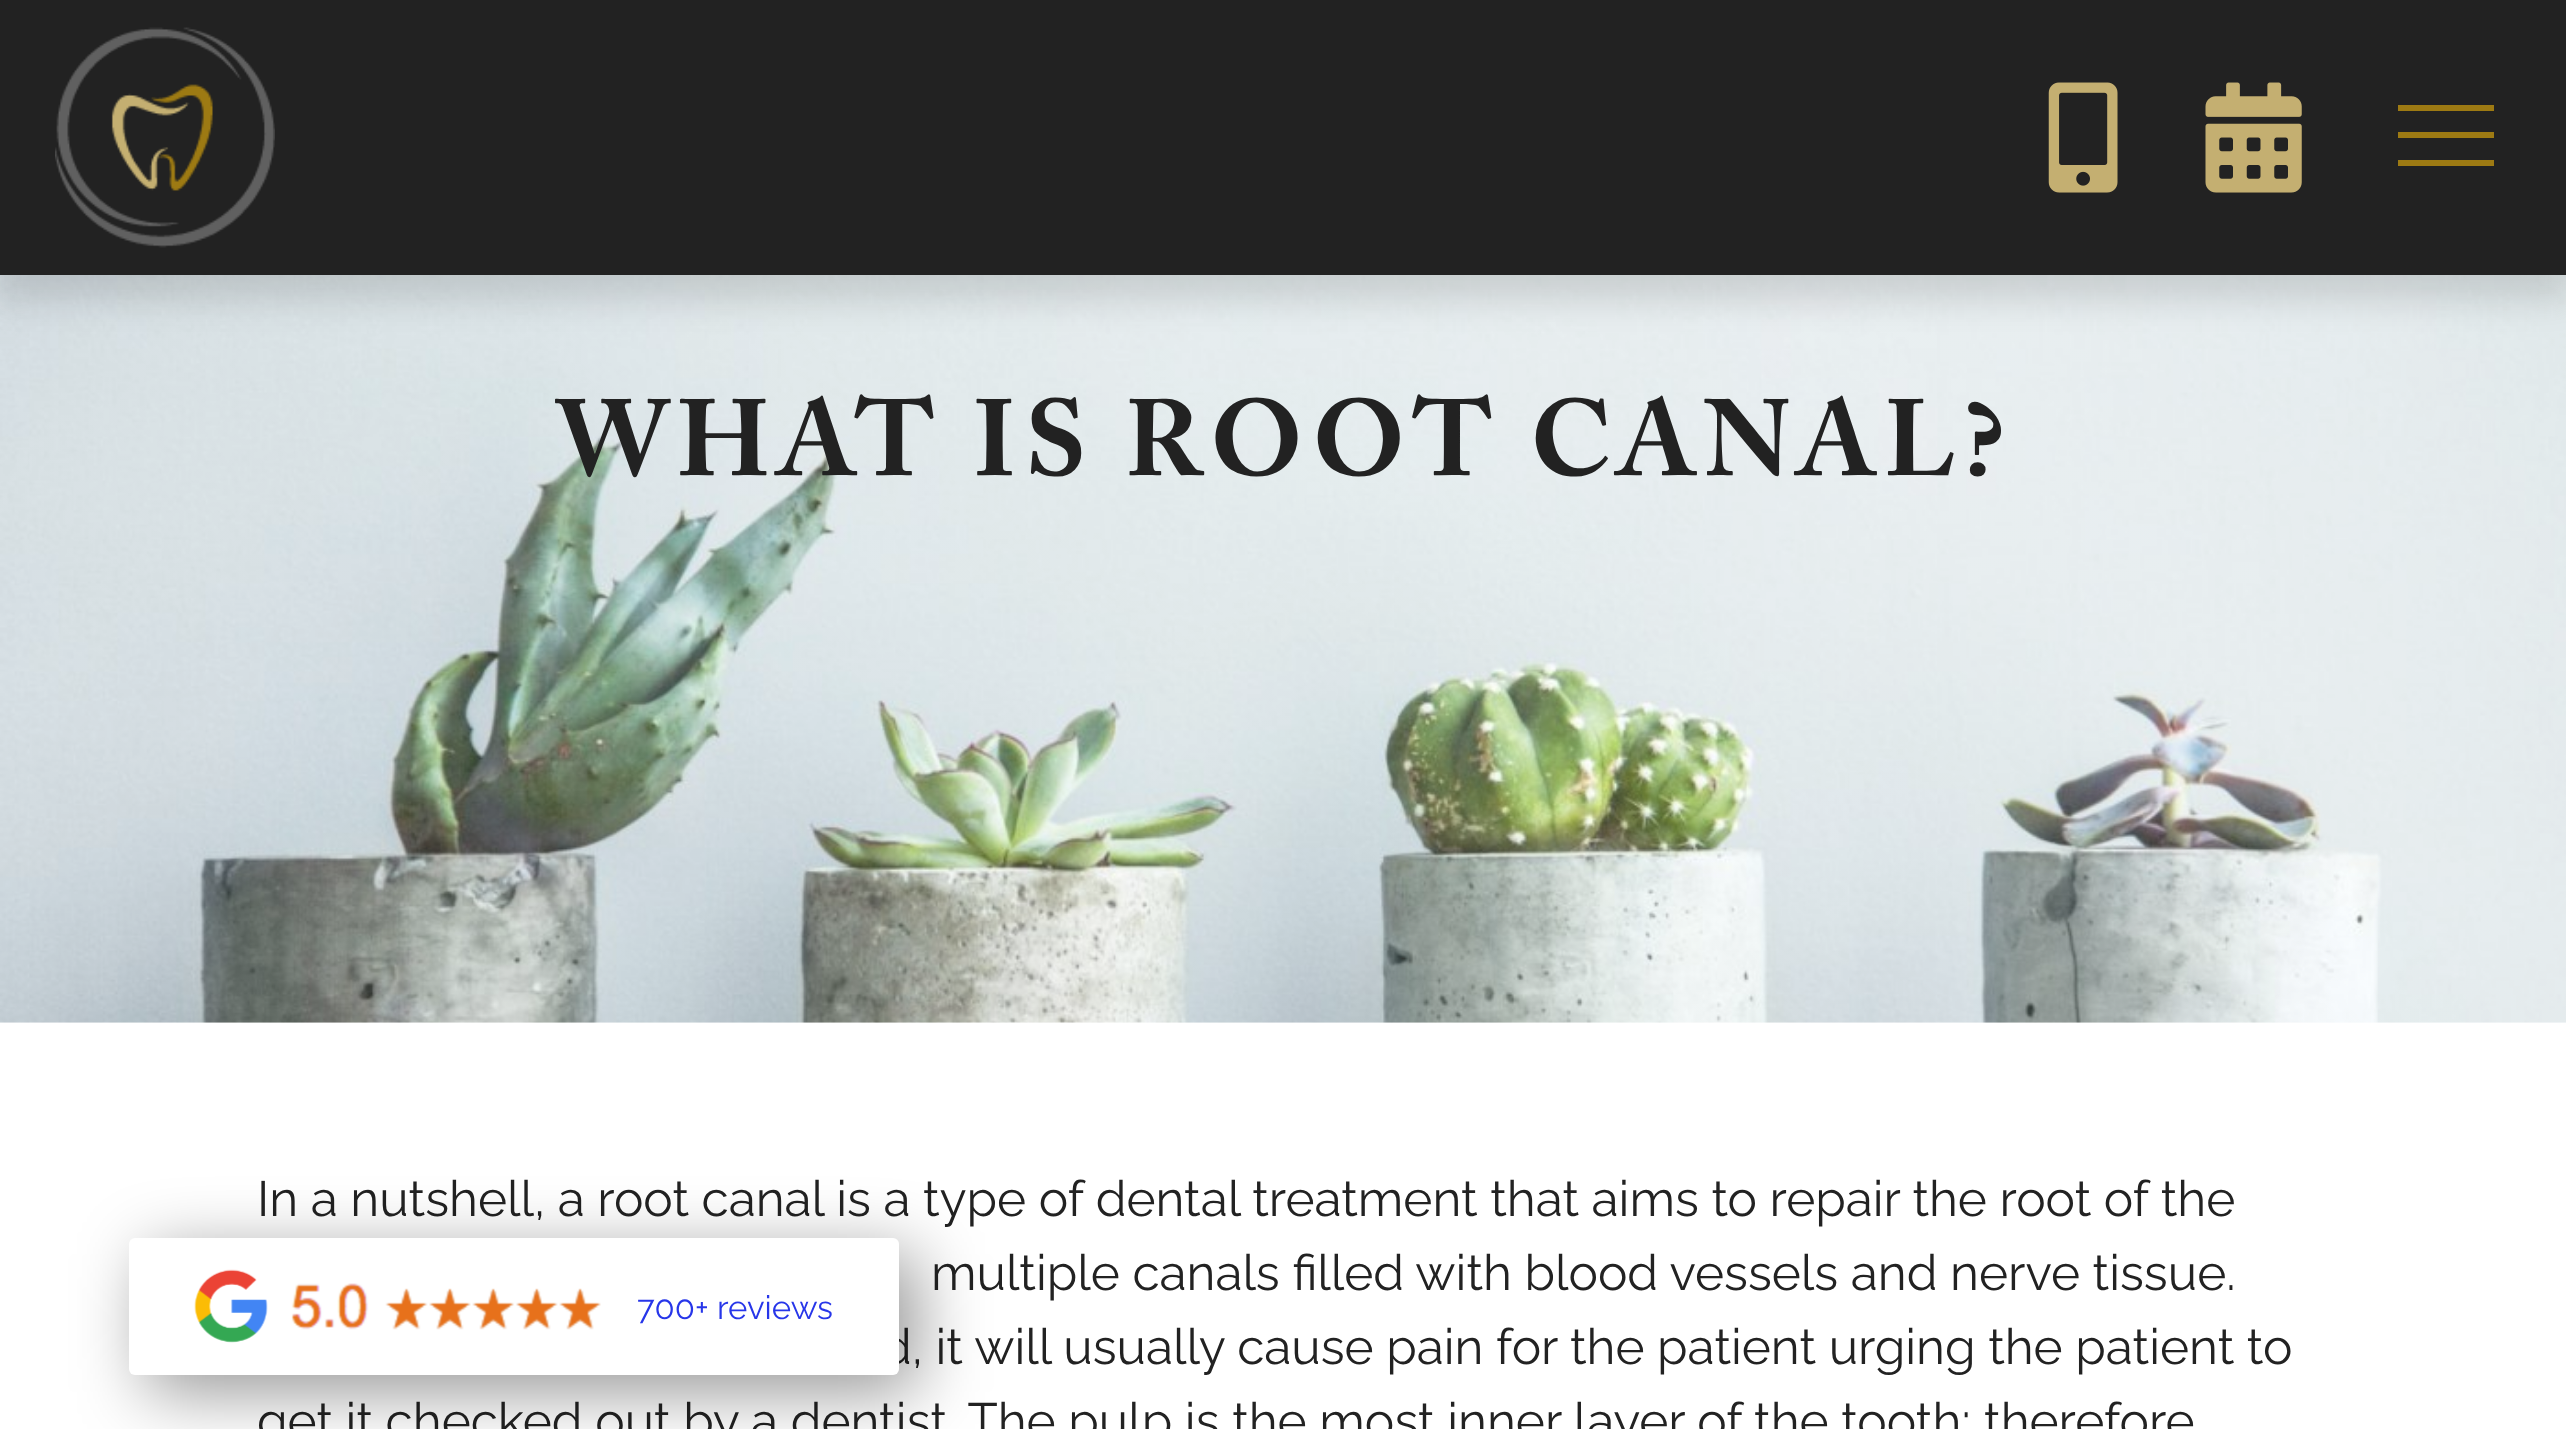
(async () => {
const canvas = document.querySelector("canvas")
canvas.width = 2566
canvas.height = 1429
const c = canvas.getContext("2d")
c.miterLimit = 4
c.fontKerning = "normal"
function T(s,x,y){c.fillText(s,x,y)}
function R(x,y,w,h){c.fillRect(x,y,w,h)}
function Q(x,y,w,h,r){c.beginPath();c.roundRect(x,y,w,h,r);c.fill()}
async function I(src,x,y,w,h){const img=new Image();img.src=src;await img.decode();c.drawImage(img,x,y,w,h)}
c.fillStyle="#fff"
R(0,0,2566,1429)
await I("4.png",0,275,2566,748)
c.fillStyle="#0000001f"
c.filter="blur(16.5px)"
c.beginPath()
c.rect(-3,19,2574,281)
c.fill()
c.filter="none"
c.fillStyle="#222"
R(0,0,2566,275)
await I("1.png",55,27,220,221)
await I("2.png",2048,82,70,111)
await I("3.png",2205,82,97,111)
c.fillStyle="#9d7a13"
R(2398,105,96,6)
R(2398,132,96,6)
R(2398,160,96,6)
c.letterSpacing="8.25px"
c.font="bold 107.25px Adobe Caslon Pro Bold"
c.fillStyle="#222"
T("WHAT IS ROOT CANAL?",556,475)
c.letterSpacing="0px"
c.font="49.5px Raleway"
T("In a nutshell, a root canal is a type of dental treatment that aims to repair the root of the",257,1216)
T("multiple canals filled with blood vessels and nerve tissue.",931,1290)
T("d, it will usually cause pain for the patient urging the patient to",881,1364)
T("get it checked out by a dentist. The pulp is the most inner layer of the tooth; therefore",257,1438)
c.fillStyle="#00000069"
c.filter="blur(34.5px)"
c.beginPath()
c.roundRect(146,1254,770,138,6)
c.fill()
c.filter="none"
c.fillStyle="#fff"
Q(129,1238,770,137,6)
await I("5.png",194,1269,74,74)
await I("6.png",291,1283,310,47)
c.font="33px Raleway"
c.fillStyle="#2736e9"
T("700+ reviews",637,1319)
})()
